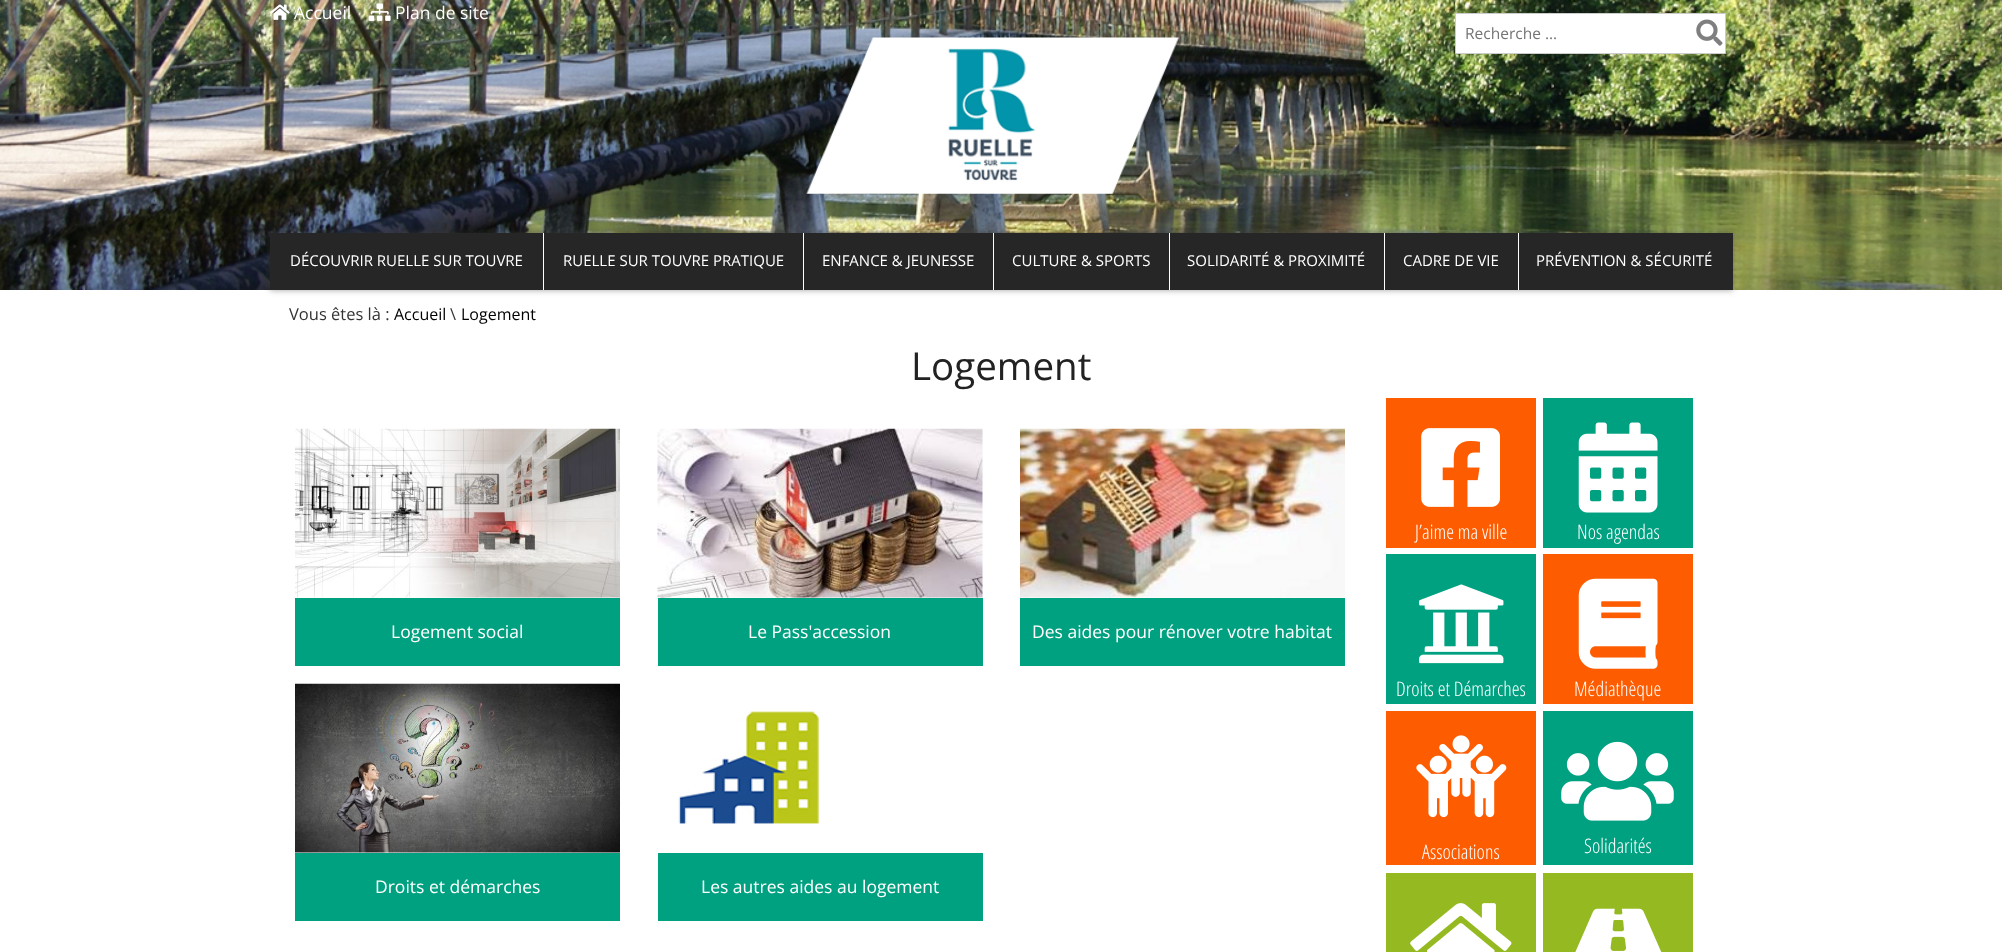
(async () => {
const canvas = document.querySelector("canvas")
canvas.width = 2002
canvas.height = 952
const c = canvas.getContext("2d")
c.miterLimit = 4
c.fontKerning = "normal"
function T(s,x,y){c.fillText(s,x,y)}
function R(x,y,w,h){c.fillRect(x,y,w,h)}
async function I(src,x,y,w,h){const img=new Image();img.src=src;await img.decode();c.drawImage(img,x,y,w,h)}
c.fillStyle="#fff"
R(0,0,2002,952)
await I("1.png",0,0,2002,290)
await I("2.png",270,4,20,16)
c.font="17.5px Open Sans"
T("Accueil",294,19)
await I("3.png",368,3,23,18)
T("Plan de site",395,19)
c.beginPath()
c.rect(1455.5,13.5,270,40)
c.fill()
c.strokeStyle="#ccc"
c.stroke()
c.font="15.5px Open Sans"
c.fillStyle="#757575"
T("Recherche ...",1465,39)
await I("4.png",1696,19,27,27)
await I("5.png",806,37,373,157)
c.fillStyle="#44444480"
c.filter="blur(3px)"
c.beginPath()
c.rect(270,233,1463,57)
c.fill()
c.filter="none"
c.fillStyle="#262626"
R(270,233,1463,57)
c.font="15px Open Sans"
c.fillStyle="#fff"
T("DÉCOUVRIR RUELLE SUR TOUVRE",290,266)
R(543,233,1,57)
T("RUELLE SUR TOUVRE PRATIQUE",563,266)
R(803,233,1,57)
T("ENFANCE & JEUNESSE",822,266)
R(993,233,1,57)
T("CULTURE & SPORTS",1012,266)
R(1169,233,1,57)
T("SOLIDARITÉ & PROXIMITÉ",1187,266)
R(1384,233,1,57)
T("CADRE DE VIE",1403,266)
R(1518,233,1,57)
T("PRÉVENTION & SÉCURITÉ",1536,266)
c.font="16.5px Open Sans"
c.fillStyle="#333"
T("Vous êtes là :",289,320)
c.font="16px Open Sans"
c.fillStyle="#000"
T("Accueil",394,320)
c.font="16.5px Open Sans"
c.fillStyle="#333"
T("\\",450,320)
c.font="16px Open Sans"
c.fillStyle="#000"
T("Logement",461,320)
c.font="38.5px Open Sans"
c.fillStyle="#222"
T("Logement",911,380)
await I("6.png",295,428,325,170)
c.fillStyle="#00a180"
R(295,598,325,68)
c.font="17.5px Open Sans"
c.fillStyle="#fff"
T("Logement social",391,638)
await I("7.png",657,428,326,170)
c.fillStyle="#00a180"
R(658,598,325,68)
c.fillStyle="#fff"
T("Le Pass'accession",748,638)
await I("8.png",1020,428,325,170)
c.fillStyle="#00a180"
R(1020,598,325,68)
c.fillStyle="#fff"
T("Des aides pour rénover votre habitat",1032,638)
await I("9.png",295,683,325,170)
c.fillStyle="#00a180"
R(295,853,325,68)
c.fillStyle="#fff"
T("Droits et démarches",375,893)
await I("10.png",678,711,141,113)
c.fillStyle="#00a180"
R(658,853,325,68)
c.fillStyle="#fff"
T("Les autres aides au logement",701,893)
c.fillStyle="#fd5c01"
R(1386,398,150,150)
await I("11.png",1421,428,79,79)
c.font="300 20px Open Sans Condensed"
c.fillStyle="#fff"
T("J’aime ma ville",1415,539)
c.fillStyle="#00a180"
R(1543,398,150,150)
await I("12.png",1578,422,80,91)
c.fillStyle="#fff"
T("Nos agendas",1577,539)
c.fillStyle="#00a180"
R(1386,554,150,150)
await I("13.png",1419,584,85,80)
c.fillStyle="#fff"
T("Droits et Démarches",1396,696)
c.fillStyle="#fd5c01"
R(1543,554,150,150)
await I("14.png",1578,578,80,91)
c.fillStyle="#fff"
T("Médiathèque",1574,696)
c.fillStyle="#fd5c01"
R(1386,711,150,154)
await I("15.png",1416,735,91,83)
c.fillStyle="#fff"
T("Associations",1422,859)
c.fillStyle="#00a180"
R(1543,711,150,154)
await I("16.png",1561,741,113,80)
c.fillStyle="#fff"
T("Solidarités",1584,853)
c.fillStyle="#95b921"
R(1386,873,150,79)
await I("17.png",1410,903,102,49)
R(1543,873,150,79)
await I("18.png",1575,908,87,44)
})()
